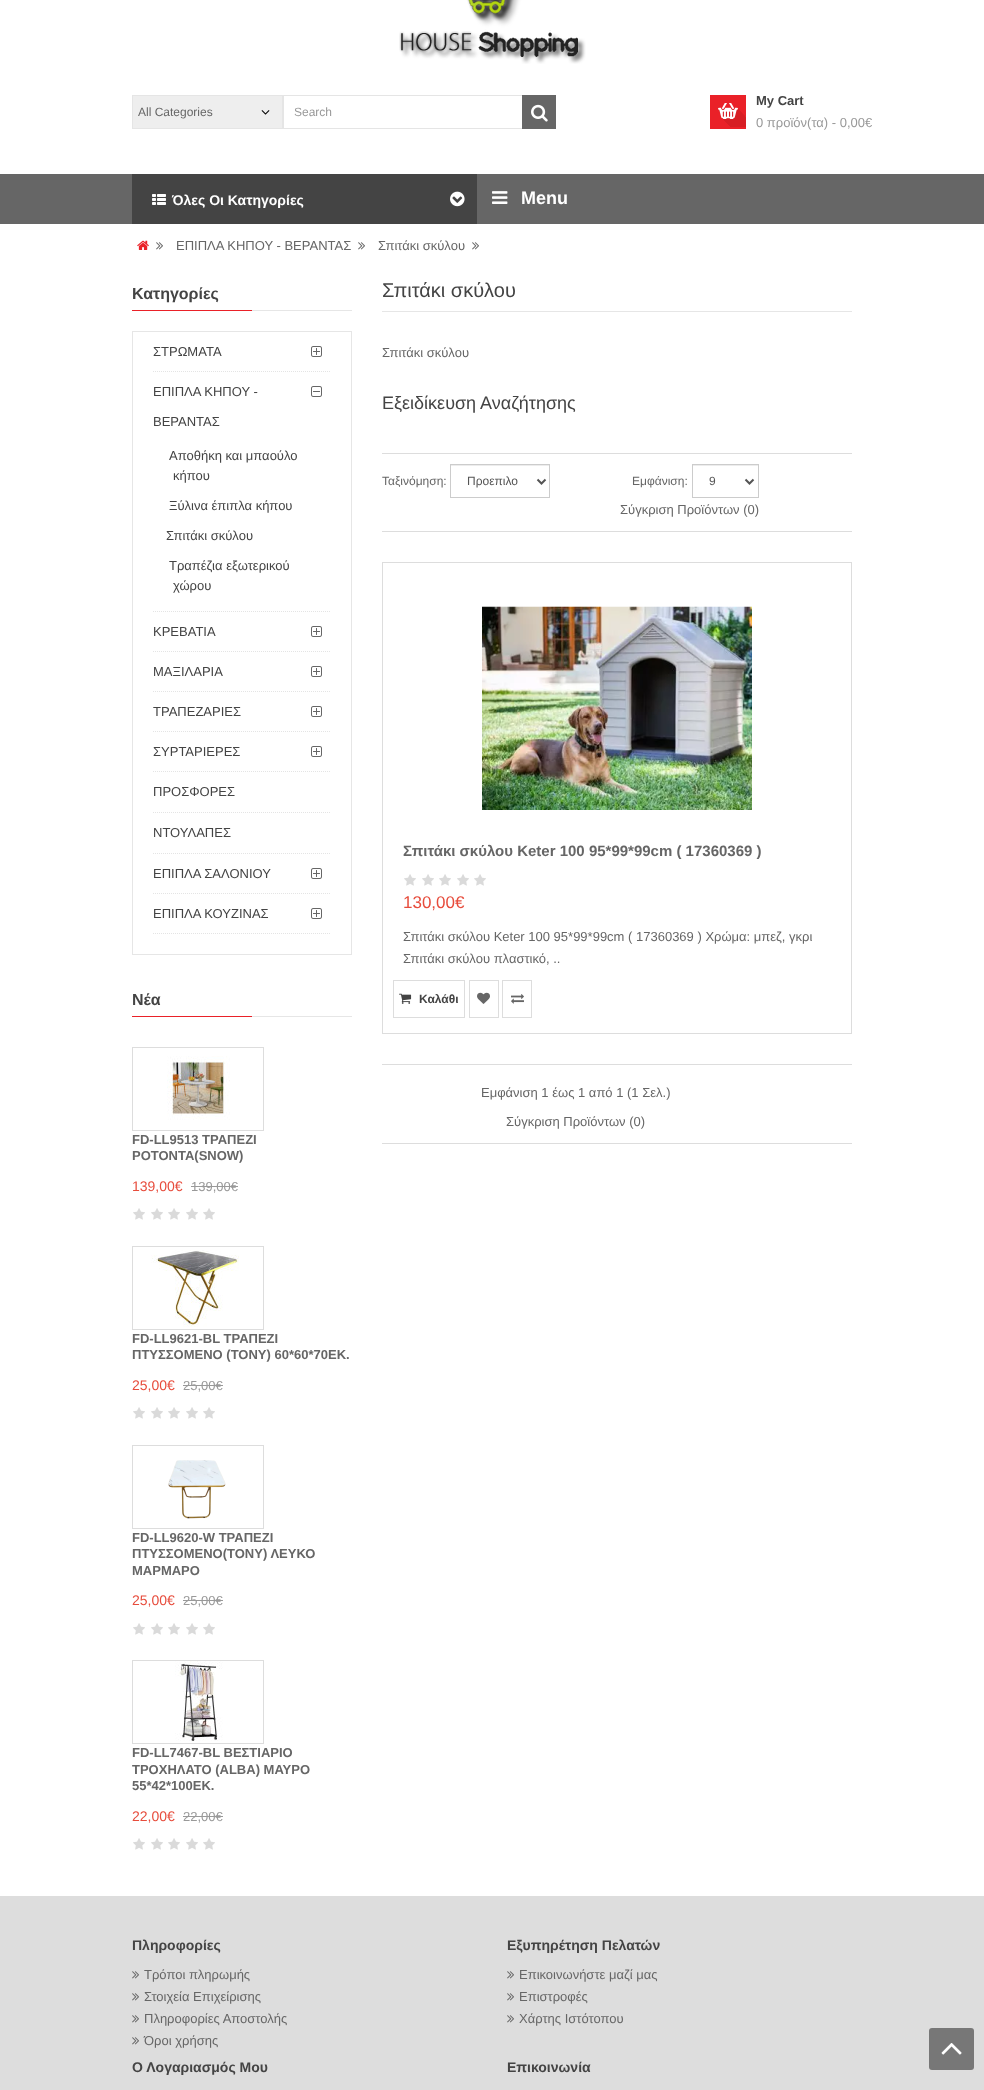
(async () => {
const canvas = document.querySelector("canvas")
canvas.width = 984
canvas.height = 2090
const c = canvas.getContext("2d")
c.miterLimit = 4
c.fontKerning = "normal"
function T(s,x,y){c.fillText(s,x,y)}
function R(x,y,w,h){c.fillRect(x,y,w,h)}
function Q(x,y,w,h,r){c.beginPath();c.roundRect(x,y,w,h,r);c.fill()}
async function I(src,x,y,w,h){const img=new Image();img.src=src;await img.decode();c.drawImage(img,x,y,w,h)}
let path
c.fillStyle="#fff"
R(0,0,984,2090)
await I("1.png",399,0,187,64)
c.strokeStyle="#e5e5e5"
c.strokeRect(132.5,95.5,150,33)
c.fillStyle="#eee"
R(133,96,149,32)
c.font="12px Liberation Sans"
c.fillStyle="#666"
T("All Categories",138,116)
await I("2.png",261,110,9,5)
c.strokeRect(283.5,95.5,239,33)
c.fillStyle="#999"
T("Search",294,116)
c.fillStyle="#666"
R(522,95,34,34)
await I("3.png",531,104,17,18)
c.fillStyle="#ea2128"
R(710,95,36,34)
await I("4.png",718,103,28,24)
c.font="bold 13px Liberation Sans"
c.fillStyle="#444"
T("My Cart",756,105)
c.font="13px Liberation Sans"
c.fillStyle="#999"
T("0 προϊόν(τα) - 0,00€",756,127)
c.fillStyle="#666"
R(0,174,984,50)
c.fillStyle="#444"
R(132,174,345,50)
await I("5.png",152,194,14,11)
c.font="bold 14px Liberation Sans"
c.fillStyle="#fff"
T("Όλες Οι Κατηγορίες",172,205)
await I("6.png",450,191,15,16)
await I("7.png",492,191,16,13)
c.font="bold 18px Liberation Sans"
T("Menu",521,204)
await I("8.png",137,240,12,10)
await I("9.png",156,242,7,8)
c.font="13px Liberation Sans"
c.fillStyle="#666"
T("ΕΠΙΠΛΑ ΚΗΠΟΥ - ΒΕΡΑΝΤΑΣ",176,250)
await I("9.png",358,242,7,8)
T("Σπιτάκι σκύλου",378,250)
await I("9.png",472,242,7,8)
c.fillStyle="#e6e6e6"
R(252,310,100,1)
c.font="bold 16px Liberation Sans"
c.fillStyle="#444"
T("Κατηγορίες",132,299)
c.fillStyle="#ea2128"
R(132,310,120,1)
c.strokeStyle="#e6e6e6"
c.strokeRect(132.5,331.5,219,623)
path = new Path2D("M153 371.5h178")
c.strokeStyle="#e4e4e4"
c.setLineDash([1,1])
c.stroke(path)
c.font="13px Liberation Sans"
c.fillStyle="#444"
T("ΣΤΡΩΜΑΤΑ",153,356)
await I("10.png",311,346,11,11)
path = new Path2D("M153 611.5h178")
c.stroke(path)
T("ΕΠΙΠΛΑ ΚΗΠΟΥ -",153,396)
T("ΒΕΡΑΝΤΑΣ",153,426)
await I("11.png",311,386,11,11)
T("Αποθήκη και μπαούλο",169,460)
T("κήπου",173,480)
T("Ξύλινα έπιπλα κήπου",169,510)
T("Σπιτάκι σκύλου",166,540)
T("Τραπέζια εξωτερικού",169,570)
T("χώρου",173,590)
path = new Path2D("M153 651.5h178")
c.stroke(path)
T("ΚΡΕΒΑΤΙΑ",153,636)
await I("10.png",311,626,11,11)
path = new Path2D("M153 691.5h178")
c.stroke(path)
T("ΜΑΞΙΛΑΡΙΑ",153,676)
await I("10.png",311,666,11,11)
path = new Path2D("M153 731.5h178")
c.stroke(path)
T("ΤΡΑΠΕΖΑΡΙΕΣ",153,716)
await I("10.png",311,706,11,11)
path = new Path2D("M153 771.5h178")
c.stroke(path)
T("ΣΥΡΤΑΡΙΕΡΕΣ",153,756)
await I("10.png",311,746,11,11)
path = new Path2D("M153 812.5h178")
c.stroke(path)
T("ΠΡΟΣΦΟΡΕΣ",153,796)
path = new Path2D("M153 853.5h178")
c.stroke(path)
T("ΝΤΟΥΛΑΠΕΣ",153,837)
path = new Path2D("M153 893.5h178")
c.stroke(path)
T("ΕΠΙΠΛΑ ΣΑΛΟΝΙΟΥ",153,878)
await I("10.png",311,868,11,11)
path = new Path2D("M153 933.5h178")
c.stroke(path)
T("ΕΠΙΠΛΑ ΚΟΥΖΙΝΑΣ",153,918)
await I("10.png",311,908,11,11)
c.fillStyle="#e6e6e6"
R(252,1016,100,1)
c.font="bold 16px Liberation Sans"
c.fillStyle="#444"
T("Νέα",132,1005)
c.fillStyle="#ea2128"
R(132,1016,120,1)
c.strokeStyle="#ddd"
c.setLineDash([])
c.strokeRect(132.5,1047.5,131,83)
await I("12.png",167,1056,63,64)
c.font="bold 13px Liberation Sans"
c.fillStyle="#666"
T("FD-LL9513 ΤΡΑΠΕΖΙ",132,1144)
T("ΡΟΤΟΝΤΑ(SNOW)",132,1160)
c.font="14px Liberation Sans"
c.fillStyle="#e74c3c"
T("139,00€",132,1191)
c.font="13px Liberation Sans"
c.fillStyle="#999"
T("139,00€",191,1191)
R(191,1186,47,1)
await I("13.png",133,1208,12,12)
await I("13.png",151,1208,12,12)
await I("13.png",168,1208,12,12)
await I("13.png",186,1208,12,12)
await I("13.png",203,1208,12,12)
c.strokeRect(132.5,1246.5,131,83)
await I("14.png",151,1250,88,77)
c.font="bold 13px Liberation Sans"
c.fillStyle="#666"
T("FD-LL9621-BL ΤΡΑΠΕΖΙ",132,1343)
T("ΠΤΥΣΣΟΜΕΝΟ (ΤΟΝΥ) 60*60*70ΕΚ.",132,1359)
c.font="14px Liberation Sans"
c.fillStyle="#e74c3c"
T("25,00€",132,1390)
c.font="13px Liberation Sans"
c.fillStyle="#999"
T("25,00€",183,1390)
R(183,1385,40,1)
await I("13.png",133,1407,12,12)
await I("13.png",151,1407,12,12)
await I("13.png",168,1407,12,12)
await I("13.png",186,1407,12,12)
await I("13.png",203,1407,12,12)
c.strokeRect(132.5,1445.5,131,83)
await I("15.png",168,1460,58,59)
c.font="bold 13px Liberation Sans"
c.fillStyle="#666"
T("FD-LL9620-W ΤΡΑΠΕΖΙ",132,1542)
T("ΠΤΥΣΣΟΜΕΝΟ(TONY) ΛΕΥΚΟ",132,1558)
T("ΜΑΡΜΑΡΟ",132,1575)
c.font="14px Liberation Sans"
c.fillStyle="#e74c3c"
T("25,00€",132,1605)
c.font="13px Liberation Sans"
c.fillStyle="#999"
T("25,00€",183,1605)
R(183,1600,40,1)
await I("13.png",133,1623,12,12)
await I("13.png",151,1623,12,12)
await I("13.png",168,1623,12,12)
await I("13.png",186,1623,12,12)
await I("13.png",203,1623,12,12)
c.strokeRect(132.5,1660.5,131,83)
await I("16.png",175,1661,48,80)
c.font="bold 13px Liberation Sans"
c.fillStyle="#666"
T("FD-LL7467-BL ΒΕΣΤΙΑΡΙΟ",132,1757)
T("ΤΡΟΧΗΛΑΤΟ (ALBA) ΜΑΥΡΟ",132,1774)
T("55*42*100ΕΚ.",132,1790)
c.font="14px Liberation Sans"
c.fillStyle="#e74c3c"
T("22,00€",132,1821)
c.font="13px Liberation Sans"
c.fillStyle="#999"
T("22,00€",183,1821)
R(183,1816,40,1)
await I("13.png",133,1838,12,12)
await I("13.png",151,1838,12,12)
await I("13.png",168,1838,12,12)
await I("13.png",186,1838,12,12)
await I("13.png",203,1838,12,12)
c.fillStyle="#e6e6e6"
R(382,311,470,1)
c.font="20px Liberation Sans"
c.fillStyle="#444"
T("Σπιτάκι σκύλου",382,297)
c.font="13px Liberation Sans"
c.fillStyle="#666"
T("Σπιτάκι σκύλου",382,357)
c.font="18px Liberation Sans"
c.fillStyle="#444"
T("Εξειδίκευση Αναζήτησης",382,409)
c.fillStyle="#ddd"
R(382,453,470,1)
R(382,531,470,1)
c.font="12px Liberation Sans"
c.fillStyle="#666"
T("Ταξινόμηση:",382,485)
c.fillStyle="#ececec"
R(451,465,98,1)
c.strokeStyle="#ccc"
c.strokeRect(450.5,464.5,99,33)
path = new Path2D("M537.5 479.5l4 4l4-4")
c.strokeStyle="#555"
c.lineWidth=2
c.stroke(path)
c.fillStyle="#555"
T("Προεπιλο",467,485)
c.fillStyle="#666"
T("Εμφάνιση:",632,485)
c.fillStyle="#ececec"
R(693,465,65,1)
c.strokeStyle="#ccc"
c.lineWidth=1
c.strokeRect(692.5,464.5,66,33)
path = new Path2D("M745.5 479.5l4 4l4-4")
c.strokeStyle="#555"
c.lineWidth=2
c.stroke(path)
c.fillStyle="#555"
T("9",709,485)
c.font="13px Liberation Sans"
c.fillStyle="#666"
T("Σύγκριση Προϊόντων (0)",620,514)
c.strokeStyle="#ddd"
c.lineWidth=1
c.strokeRect(382.5,562.5,469,471)
await I("17.png",482,606,270,204)
c.font="bold 15px Liberation Sans"
T("Σπιτάκι σκύλου Keter 100 95*99*99cm ( 17360369 )",403,856)
await I("13.png",404,874,12,12)
await I("13.png",422,874,12,12)
await I("13.png",439,874,12,12)
await I("13.png",457,874,12,12)
await I("13.png",474,874,12,12)
c.font="17px Liberation Sans"
c.fillStyle="#e74c3c"
T("130,00€",403,908)
c.font="13px Liberation Sans"
c.fillStyle="#666"
T("Σπιτάκι σκύλου Keter 100 95*99*99cm ( 17360369 ) Χρώμα: μπεζ, γκρι",403,941)
T("Σπιτάκι σκύλου πλαστικό, ..",403,963)
c.strokeRect(393.5,980.5,71,37)
await I("18.png",399,993,13,11)
c.font="bold 12px Liberation Sans"
c.fillStyle="#444"
T("Καλάθι",419,1003)
c.strokeRect(469.5,980.5,29,37)
await I("19.png",477,992,13,12)
c.strokeRect(502.5,980.5,29,37)
await I("20.png",511,994,13,10)
c.fillStyle="#ddd"
R(382,1064,470,1)
R(382,1143,470,1)
c.font="13px Liberation Sans"
c.fillStyle="#666"
T("Εμφάνιση 1 έως 1 από 1 (1 Σελ.)",481,1097)
T("Σύγκριση Προϊόντων (0)",506,1126)
c.fillStyle="#ddd"
R(0,1896,984,194)
c.font="bold 14px Liberation Sans"
c.fillStyle="#444"
T("Πληροφορίες",132,1950)
await I("21.png",132,1971,7,8)
c.font="13px Liberation Sans"
c.fillStyle="#666"
T("Τρόποι πληρωμής",144,1979)
await I("21.png",132,1993,7,8)
T("Στοιχεία Επιχείρισης",144,2001)
await I("21.png",132,2015,7,8)
T("Πληροφορίες Αποστολής",144,2023)
await I("21.png",132,2037,7,8)
T("Όροι χρήσης",144,2045)
c.font="bold 14px Liberation Sans"
c.fillStyle="#444"
T("Εξυπηρέτηση Πελατών",507,1950)
await I("21.png",507,1971,7,8)
c.font="13px Liberation Sans"
c.fillStyle="#666"
T("Επικοινωνήστε μαζί μας",519,1979)
await I("21.png",507,1993,7,8)
T("Επιστροφές",519,2001)
await I("21.png",507,2015,7,8)
T("Χάρτης Ιστότοπου",519,2023)
c.font="bold 14px Liberation Sans"
c.fillStyle="#444"
T("Ο Λογαριασμός Μου",132,2072)
T("Επικοινωνία",507,2072)
c.fillStyle="#777"
Q(929,2028,45,42,3)
await I("22.png",941,2043,21,12)
})()
